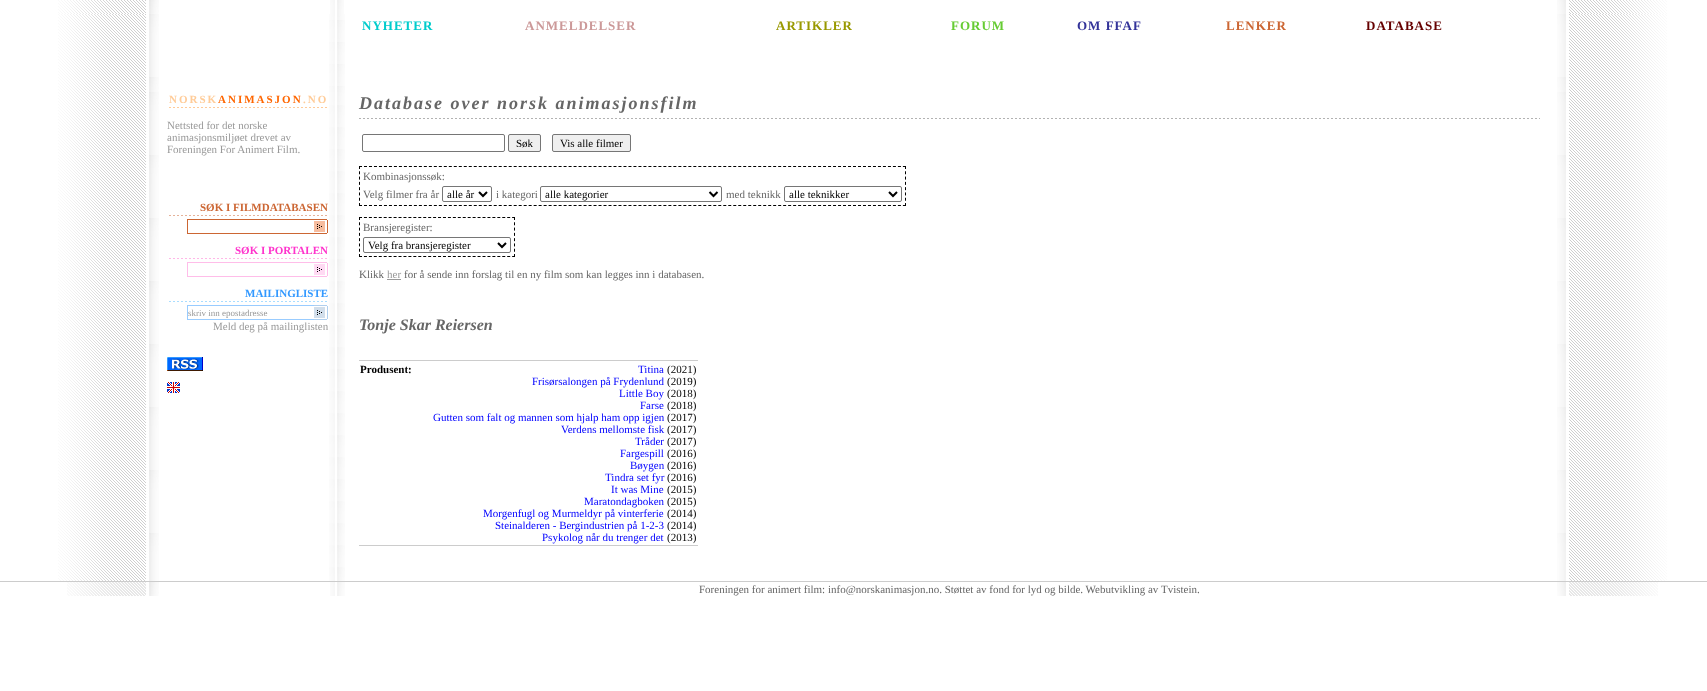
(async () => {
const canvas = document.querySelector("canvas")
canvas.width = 1707
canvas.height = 691
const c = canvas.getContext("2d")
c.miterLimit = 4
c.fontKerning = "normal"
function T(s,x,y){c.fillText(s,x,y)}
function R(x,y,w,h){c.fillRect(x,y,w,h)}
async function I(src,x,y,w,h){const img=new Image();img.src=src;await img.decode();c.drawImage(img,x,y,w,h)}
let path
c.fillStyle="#fff"
R(0,0,1707,691)
await I("1.png",58,0,101,14)
await I("2.png",330,0,14,14)
await I("3.png",1557,0,110,14)
await I("4.png",58,14,101,78)
await I("5.png",329,14,16,78)
c.letterSpacing="1px"
c.font="bold 13px Liberation Serif"
c.fillStyle="#0cc"
T("NYHETER",362,30)
c.fillStyle="#c99"
T("ANMELDELSER",525,30)
c.fillStyle="#990"
T("ARTIKLER",776,30)
c.fillStyle="#6c3"
T("FORUM",951,30)
c.fillStyle="#339"
T("OM FFAF",1077,30)
c.fillStyle="#c63"
T("LENKER",1226,30)
c.fillStyle="#600"
T("DATABASE",1366,30)
await I("6.png",1557,14,110,78)
await I("7.png",58,92,101,489)
await I("8.png",329,92,16,489)
await I("9.png",169,107,158,1)
c.letterSpacing="2px"
c.font="bold 11px Liberation Serif"
c.fillStyle="#fc9"
T("NORSK",169,103)
c.fillStyle="#f60"
T("ANIMASJON",218,103)
c.fillStyle="#fc9"
T(".NO",303,103)
c.letterSpacing="0px"
c.font="11px Liberation Serif"
c.fillStyle="#999"
T("Nettsted for det norske",167,129)
T("animasjonsmiljøet drevet av",167,141)
T("Foreningen For Animert Film.",167,153)
await I("10.png",169,215,158,1)
c.font="bold 11px Liberation Serif"
c.fillStyle="#c63"
T("SØK I FILMDATABASEN",200,211)
R(187,219,127,1)
R(187,233,127,1)
R(187,219,1,15)
await I("11.png",314,219,14,15)
await I("12.png",169,258,158,1)
c.fillStyle="#f3c"
T("SØK I PORTALEN",235,254)
c.fillStyle="#ffbde9"
R(187,262,127,1)
R(187,276,127,1)
R(187,262,1,15)
await I("13.png",314,262,14,15)
await I("14.png",169,301,158,1)
c.fillStyle="#39f"
T("MAILINGLISTE",245,297)
c.fillStyle="#9cf"
R(187,305,127,1)
R(187,319,127,1)
R(187,305,1,15)
c.font="9px Liberation Serif"
c.fillStyle="#999"
T("skriv inn epostadresse",188,316)
await I("15.png",314,305,14,15)
c.font="11px Liberation Serif"
T("Meld deg på mailinglisten",213,330)
await I("16.png",167,357,36,14)
await I("17.png",167,382,13,11)
await I("18.png",359,118,1181,1)
c.letterSpacing="2px"
c.font="italic bold 18px Liberation Serif"
c.fillStyle="#666"
T("Database over norsk animasjonsfilm",359,109)
c.beginPath()
c.roundRect(362.5,134.5,142,17,1.5)
c.strokeStyle="#767676"
c.stroke()
c.fillStyle="#efefef"
c.beginPath()
c.roundRect(508.5,134.5,32,17,1.5)
c.fill()
c.stroke()
c.letterSpacing="0px"
c.font="11px Liberation Serif"
c.fillStyle="#000"
T("Søk",516,147)
c.fillStyle="#efefef"
c.beginPath()
c.roundRect(552.5,134.5,78,17,1.5)
c.fill()
c.stroke()
c.fillStyle="#000"
T("Vis alle filmer",560,147)
path = new Path2D("M359 166.5h547")
c.strokeStyle="#000"
c.setLineDash([3,1.99])
c.stroke(path)
path = new Path2D("M905.5 166v40")
c.setLineDash([3,2.29])
c.stroke(path)
path = new Path2D("M359 205.5h547")
c.setLineDash([3,1.99])
c.stroke(path)
path = new Path2D("M359.5 166v40")
c.setLineDash([3,2.29])
c.stroke(path)
c.fillStyle="#666"
T("Kombinasjonssøk:",363,180)
T("Velg filmer fra år",363,198)
c.beginPath()
c.roundRect(442.5,186.5,49,15,1.5)
c.strokeStyle="#767676"
c.setLineDash([])
c.stroke()
path = new Path2D("M479 192l4 4l4-4")
c.strokeStyle="#000"
c.lineWidth=2
c.stroke(path)
c.fillStyle="#000"
T("alle år",447,198)
c.fillStyle="#666"
T("i kategori",496,198)
c.beginPath()
c.roundRect(540.5,186.5,181,15,1.5)
c.strokeStyle="#767676"
c.lineWidth=1
c.stroke()
path = new Path2D("M709.5 192l4 4l4-4")
c.strokeStyle="#000"
c.lineWidth=2
c.stroke(path)
c.fillStyle="#000"
T("alle kategorier",545,198)
c.fillStyle="#666"
T("med teknikk",726,198)
c.beginPath()
c.roundRect(784.5,186.5,117,15,1.5)
c.strokeStyle="#767676"
c.lineWidth=1
c.stroke()
path = new Path2D("M889 192l4 4l4-4")
c.strokeStyle="#000"
c.lineWidth=2
c.stroke(path)
c.fillStyle="#000"
T("alle teknikker",789,198)
path = new Path2D("M359 217.5h156")
c.lineWidth=1
c.setLineDash([3,1.94])
c.stroke(path)
path = new Path2D("M514.5 217v40")
c.setLineDash([3,2.29])
c.stroke(path)
path = new Path2D("M359 256.5h156")
c.setLineDash([3,1.94])
c.stroke(path)
path = new Path2D("M359.5 217v40")
c.setLineDash([3,2.29])
c.stroke(path)
c.fillStyle="#666"
T("Bransjeregister:",363,231)
c.beginPath()
c.roundRect(363.5,237.5,147,15,1.5)
c.strokeStyle="#767676"
c.setLineDash([])
c.stroke()
path = new Path2D("M498 243l4 4l4-4")
c.strokeStyle="#000"
c.lineWidth=2
c.stroke(path)
c.fillStyle="#000"
T("Velg fra bransjeregister",368,249)
c.fillStyle="#666"
T("Klikk",359,278)
c.fillStyle="#999"
T("her",387,278)
R(387,279,14,1)
c.fillStyle="#666"
T("for å sende inn forslag til en ny film som kan legges inn i databasen.",404,278)
c.font="italic bold 16px Liberation Serif"
T("Tonje Skar Reiersen",359,330)
c.font="bold 11px Liberation Serif"
c.fillStyle="#000"
T("Produsent:",360,373)
c.fillStyle="#ccc"
R(359,360,339,1)
R(359,545,339,1)
c.font="11px Liberation Serif"
c.fillStyle="#00f"
T("Titina",638,373)
c.fillStyle="#000"
T("(2021)",667,373)
c.fillStyle="#00f"
T("Frisørsalongen på Frydenlund",532,385)
c.fillStyle="#000"
T("(2019)",667,385)
c.fillStyle="#00f"
T("Little Boy",619,397)
c.fillStyle="#000"
T("(2018)",667,397)
c.fillStyle="#00f"
T("Farse",640,409)
c.fillStyle="#000"
T("(2018)",667,409)
c.fillStyle="#00f"
T("Gutten som falt og mannen som hjalp ham opp igjen",433,421)
c.fillStyle="#000"
T("(2017)",667,421)
c.fillStyle="#00f"
T("Verdens mellomste fisk",561,433)
c.fillStyle="#000"
T("(2017)",667,433)
c.fillStyle="#00f"
T("Tråder",635,445)
c.fillStyle="#000"
T("(2017)",667,445)
c.fillStyle="#00f"
T("Fargespill",620,457)
c.fillStyle="#000"
T("(2016)",667,457)
c.fillStyle="#00f"
T("Bøygen",630,469)
c.fillStyle="#000"
T("(2016)",667,469)
c.fillStyle="#00f"
T("Tindra set fyr",605,481)
c.fillStyle="#000"
T("(2016)",667,481)
c.fillStyle="#00f"
T("It was Mine",611,493)
c.fillStyle="#000"
T("(2015)",667,493)
c.fillStyle="#00f"
T("Maratondagboken",584,505)
c.fillStyle="#000"
T("(2015)",667,505)
c.fillStyle="#00f"
T("Morgenfugl og Murmeldyr på vinterferie",483,517)
c.fillStyle="#000"
T("(2014)",667,517)
c.fillStyle="#00f"
T("Steinalderen - Bergindustrien på 1-2-3",495,529)
c.fillStyle="#000"
T("(2014)",667,529)
c.fillStyle="#00f"
T("Psykolog når du trenger det",542,541)
c.fillStyle="#000"
T("(2013)",667,541)
await I("19.png",1557,92,110,489)
await I("20.png",1557,582,101,14)
c.fillStyle="#ccc"
R(0,581,1707,1)
await I("21.png",67,582,92,14)
await I("22.png",330,582,15,14)
c.fillStyle="#666"
T("Foreningen for animert film: info@norskanimasjon.no. Støttet av fond for lyd og bilde. Webutvikling av Tvistein.",699,593)
})()
